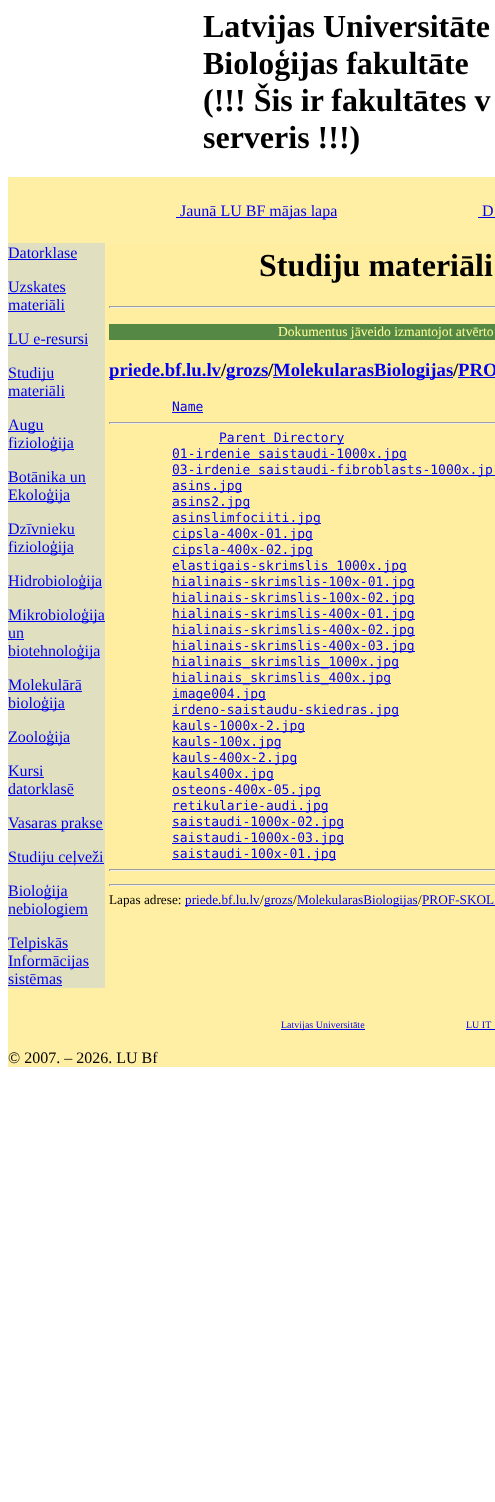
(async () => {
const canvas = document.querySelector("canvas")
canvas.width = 495
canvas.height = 1502
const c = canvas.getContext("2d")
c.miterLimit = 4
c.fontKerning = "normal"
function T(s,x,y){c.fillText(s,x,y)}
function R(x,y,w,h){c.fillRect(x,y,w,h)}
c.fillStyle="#fff"
R(0,0,495,1502)
c.font="bold 32px Liberation Serif"
c.fillStyle="#000"
T("Latvijas Universitāte",203,37)
T("Bioloģijas fakultāte",203,74)
T("(!!! Šis ir fakultātes v",203,111)
T("serveris !!!)",203,148)
c.fillStyle="#ffefa5"
R(8,177,487,890)
c.fillStyle="#00e"
R(176,217,161,1)
c.font="16px Liberation Serif"
T("Jaunā LU BF mājas lapa",180,216)
T("D",482,216)
R(478,217,17,1)
c.fillStyle="#e0e0c0"
R(8,243,97,745)
c.fillStyle="#00e"
T("Datorklase",8,258)
R(8,259,69,1)
T("Uzskates",8,292)
R(8,293,58,1)
T("materiāli",8,310)
R(8,311,57,1)
T("LU e-resursi",8,344)
R(8,345,80,1)
R(8,379,46,1)
T("Studiju",8,378)
T("materiāli",8,396)
R(8,397,57,1)
R(8,431,36,1)
T("Augu",8,430)
R(8,449,66,1)
T("fizioloģija",8,448)
T("Botānika un",8,482)
R(8,483,78,1)
R(8,501,62,1)
T("Ekoloģija",8,500)
T("Dzīvnieku",8,534)
R(8,535,67,1)
R(8,553,66,1)
T("fizioloģija",8,552)
R(8,587,94,1)
T("Hidrobioloģija",8,586)
R(8,621,97,1)
T("Mikrobioloģija",8,620)
T("un",8,638)
R(8,639,16,1)
R(8,657,92,1)
T("biotehnoloģija",8,656)
T("Molekulārā",8,690)
R(8,691,74,1)
R(8,709,57,1)
T("bioloģija",8,708)
R(8,743,62,1)
T("Zooloģija",8,742)
T("Kursi",8,776)
R(8,777,36,1)
T("datorklasē",8,794)
R(8,795,66,1)
R(8,829,95,1)
T("Vasaras prakse",8,828)
R(8,863,96,1)
T("Studiju ceļveži",8,862)
R(8,897,60,1)
T("Bioloģija",8,896)
R(8,915,80,1)
T("nebiologiem",8,914)
R(8,949,60,1)
T("Telpiskās",8,948)
R(8,967,81,1)
T("Informācijas",8,966)
T("sistēmas",8,984)
R(8,985,54,1)
c.fillStyle="#ffeea0"
R(107,245,388,665)
c.font="bold 32px Liberation Serif"
c.fillStyle="#000"
T("Studiju materiāli",259,276)
c.fillStyle="#9f9f9f"
R(109,306,386,1)
c.fillStyle="#eee"
R(109,307,386,1)
c.fillStyle="#9f9f9f"
R(109,306,1,2)
c.fillStyle="#584"
R(109,324,386,16)
c.font="13.6px Liberation Serif"
c.fillStyle="#ff9"
T("Dokumentus jāveido izmantojot atvērto",278,336)
c.fillStyle="#00e"
R(109,377,112,1)
c.font="bold 18.75px Liberation Serif"
T("priede.bf.lu.lv",109,376)
c.fillStyle="#000"
T("/",221,376)
c.fillStyle="#00e"
R(226,377,42,1)
T("grozs",226,376)
c.fillStyle="#000"
T("/",268,376)
c.fillStyle="#00e"
R(273,377,180,1)
T("MolekularasBiologijas",273,376)
c.fillStyle="#000"
T("/",453,376)
c.fillStyle="#00e"
T("PRO",458,376)
R(458,377,37,1)
c.font="13px DejaVu Sans Mono"
T("Name",172,411)
R(172,412,31,1)
c.fillStyle="#9f9f9f"
R(109,422,386,1)
c.fillStyle="#eee"
R(109,423,386,1)
c.fillStyle="#9f9f9f"
R(109,422,1,2)
c.fillStyle="#00e"
R(219,443,125,1)
T("Parent Directory",219,442)
R(172,459,235,1)
T("01-irdenie saistaudi-1000x.jpg",172,458)
R(172,475,323,1)
T("03-irdenie saistaudi-fibroblasts-1000x.jp",172,474)
R(172,491,70,1)
T("asins.jpg",172,490)
R(172,507,78,1)
T("asins2.jpg",172,506)
R(172,523,149,1)
T("asinslimfociiti.jpg",172,522)
R(172,539,141,1)
T("cipsla-400x-01.jpg",172,538)
R(172,555,141,1)
T("cipsla-400x-02.jpg",172,554)
R(172,571,235,1)
T("elastigais-skrimslis 1000x.jpg",172,570)
R(172,587,243,1)
T("hialinais-skrimslis-100x-01.jpg",172,586)
R(172,603,243,1)
T("hialinais-skrimslis-100x-02.jpg",172,602)
R(172,619,243,1)
T("hialinais-skrimslis-400x-01.jpg",172,618)
R(172,635,243,1)
T("hialinais-skrimslis-400x-02.jpg",172,634)
R(172,651,243,1)
T("hialinais-skrimslis-400x-03.jpg",172,650)
R(172,667,227,1)
T("hialinais_skrimslis_1000x.jpg",172,666)
R(172,683,219,1)
T("hialinais_skrimslis_400x.jpg",172,682)
R(172,699,94,1)
T("image004.jpg",172,698)
R(172,715,227,1)
T("irdeno-saistaudu-skiedras.jpg",172,714)
R(172,731,133,1)
T("kauls-1000x-2.jpg",172,730)
R(172,747,109,1)
T("kauls-100x.jpg",172,746)
R(172,763,125,1)
T("kauls-400x-2.jpg",172,762)
R(172,779,102,1)
T("kauls400x.jpg",172,778)
R(172,795,149,1)
T("osteons-400x-05.jpg",172,794)
R(172,811,156,1)
T("retikularie-audi.jpg",172,810)
R(172,827,172,1)
T("saistaudi-1000x-02.jpg",172,826)
R(172,843,172,1)
T("saistaudi-1000x-03.jpg",172,842)
R(172,859,164,1)
T("saistaudi-100x-01.jpg",172,858)
c.fillStyle="#9f9f9f"
R(109,869,386,1)
c.fillStyle="#eee"
R(109,870,386,1)
c.fillStyle="#9f9f9f"
R(109,869,1,2)
R(109,884,386,1)
c.fillStyle="#eee"
R(109,885,386,1)
c.fillStyle="#9f9f9f"
R(109,884,1,2)
c.font="13.25px Liberation Serif"
c.fillStyle="#000"
T("Lapas adrese:",109,904)
c.fillStyle="#00e"
R(185,905,75,1)
T("priede.bf.lu.lv",185,904)
c.fillStyle="#000"
T("/",260,904)
c.fillStyle="#00e"
R(264,905,29,1)
T("grozs",264,904)
c.fillStyle="#000"
T("/",293,904)
c.fillStyle="#00e"
R(297,905,121,1)
T("MolekularasBiologijas",297,904)
c.fillStyle="#000"
T("/",418,904)
c.fillStyle="#00e"
R(422,905,73,1)
T("PROF-SKOL",422,904)
R(281,1029,84,1)
c.font="10px Liberation Serif"
T("Latvijas Universitāte",281,1028)
T("LU IT",466,1028)
R(466,1029,29,1)
c.font="16px Liberation Serif"
c.fillStyle="#000"
T("© 2007. – 2026. LU Bf",8,1063)
})()
